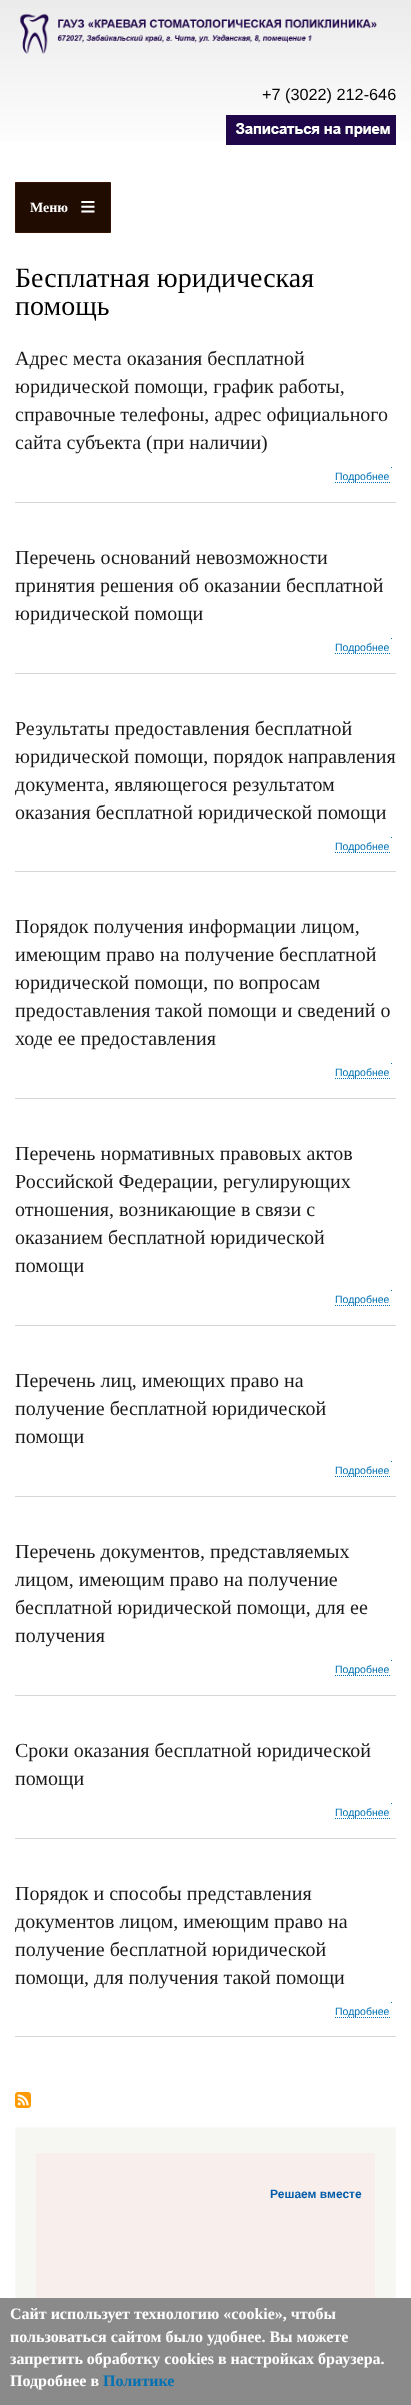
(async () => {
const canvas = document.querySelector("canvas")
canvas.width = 411
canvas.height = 2405
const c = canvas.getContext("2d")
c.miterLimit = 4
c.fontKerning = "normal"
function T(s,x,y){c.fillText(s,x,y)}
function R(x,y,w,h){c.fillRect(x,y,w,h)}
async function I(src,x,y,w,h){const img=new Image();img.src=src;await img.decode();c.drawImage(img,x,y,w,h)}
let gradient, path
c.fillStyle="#fff"
R(0,0,411,2405)
gradient = c.createLinearGradient(206,0,206,162)
gradient.addColorStop(0,"#ebebeb")
gradient.addColorStop(1,"#fff")
c.fillStyle = gradient
R(0,0,411,142)
await I("1.png",20,13,357,41)
c.font="16.25px Liberation Sans"
c.fillStyle="#000"
T("+7 (3022) 212-646",262,100)
await I("2.png",226,115,170,30)
c.fillStyle="#210c02"
c.beginPath()
c.rect(15.5,182.5,95,50)
c.fill()
c.strokeStyle="#381301"
c.stroke()
c.font="bold 14px Liberation Serif"
c.fillStyle="#fff"
T("Меню",30,212)
c.font="bold 28px Liberation Serif"
T("≡",80,216)
c.font="28px Liberation Serif"
c.fillStyle="#000"
T("Бесплатная юридическая",15,287)
T("помощь",15,315)
c.fillStyle="#d3d7d9"
R(15,502,381,1)
c.font="20px Liberation Serif"
c.fillStyle="#181818"
T("Адрес места оказания бесплатной",15,365)
T("юридической помощи, график работы,",15,393)
T("справочные телефоны, адрес официального",15,421)
T("сайта субъекта (при наличии)",15,449)
path = new Path2D("M335 482.5h56")
c.strokeStyle="#0071b3"
c.setLineDash([1,1])
c.stroke(path)
c.font="10.5px Liberation Sans"
c.fillStyle="#0071b3"
T("Подробнее",335,480)
R(391,467,1,1)
c.fillStyle="#d3d7d9"
R(15,673,381,1)
c.font="20px Liberation Serif"
c.fillStyle="#181818"
T("Перечень оснований невозможности",15,564)
T("принятия решения об оказании бесплатной",15,592)
T("юридической помощи",15,620)
path = new Path2D("M335 653.5h56")
c.stroke(path)
c.font="10.5px Liberation Sans"
c.fillStyle="#0071b3"
T("Подробнее",335,651)
R(391,638,1,1)
c.fillStyle="#d3d7d9"
R(15,871,381,1)
c.font="20px Liberation Serif"
c.fillStyle="#181818"
T("Результаты предоставления бесплатной",15,735)
T("юридической помощи, порядок направления",15,763)
T("документа, являющегося результатом",15,791)
T("оказания бесплатной юридической помощи",15,819)
path = new Path2D("M335 852.5h56")
c.stroke(path)
c.font="10.5px Liberation Sans"
c.fillStyle="#0071b3"
T("Подробнее",335,850)
R(391,837,1,1)
c.fillStyle="#d3d7d9"
R(15,1098,381,1)
c.font="20px Liberation Serif"
c.fillStyle="#181818"
T("Порядок получения информации лицом,",15,933)
T("имеющим право на получение бесплатной",15,961)
T("юридической помощи, по вопросам",15,989)
T("предоставления такой помощи и сведений о",15,1017)
T("ходе ее предоставления",15,1045)
path = new Path2D("M335 1078.5h56")
c.stroke(path)
c.font="10.5px Liberation Sans"
c.fillStyle="#0071b3"
T("Подробнее",335,1076)
R(391,1063,1,1)
c.fillStyle="#d3d7d9"
R(15,1325,381,1)
c.font="20px Liberation Serif"
c.fillStyle="#181818"
T("Перечень нормативных правовых актов",15,1160)
T("Российской Федерации, регулирующих",15,1188)
T("отношения, возникающие в связи с",15,1216)
T("оказанием бесплатной юридической",15,1244)
T("помощи",15,1272)
path = new Path2D("M335 1305.5h56")
c.stroke(path)
c.font="10.5px Liberation Sans"
c.fillStyle="#0071b3"
T("Подробнее",335,1303)
R(391,1290,1,1)
c.fillStyle="#d3d7d9"
R(15,1496,381,1)
c.font="20px Liberation Serif"
c.fillStyle="#181818"
T("Перечень лиц, имеющих право на",15,1387)
T("получение бесплатной юридической",15,1415)
T("помощи",15,1443)
path = new Path2D("M335 1476.5h56")
c.stroke(path)
c.font="10.5px Liberation Sans"
c.fillStyle="#0071b3"
T("Подробнее",335,1474)
R(391,1461,1,1)
c.fillStyle="#d3d7d9"
R(15,1695,381,1)
c.font="20px Liberation Serif"
c.fillStyle="#181818"
T("Перечень документов, представляемых",15,1558)
T("лицом, имеющим право на получение",15,1586)
T("бесплатной юридической помощи, для ее",15,1614)
T("получения",15,1642)
path = new Path2D("M335 1675.5h56")
c.stroke(path)
c.font="10.5px Liberation Sans"
c.fillStyle="#0071b3"
T("Подробнее",335,1673)
R(391,1660,1,1)
c.fillStyle="#d3d7d9"
R(15,1838,381,1)
c.font="20px Liberation Serif"
c.fillStyle="#181818"
T("Сроки оказания бесплатной юридической",15,1757)
T("помощи",15,1785)
path = new Path2D("M335 1818.5h56")
c.stroke(path)
c.font="10.5px Liberation Sans"
c.fillStyle="#0071b3"
T("Подробнее",335,1816)
R(391,1803,1,1)
c.fillStyle="#d3d7d9"
R(15,2036,381,1)
c.font="20px Liberation Serif"
c.fillStyle="#181818"
T("Порядок и способы представления",15,1900)
T("документов лицом, имеющим право на",15,1928)
T("получение бесплатной юридической",15,1956)
T("помощи, для получения такой помощи",15,1984)
path = new Path2D("M335 2017.5h56")
c.stroke(path)
c.font="10.5px Liberation Sans"
c.fillStyle="#0071b3"
T("Подробнее",335,2015)
R(391,2002,1,1)
await I("3.png",15,2092,16,16)
c.fillStyle="#f6f6f2"
R(16,2128,379,170)
c.strokeStyle="#f9f9f9"
c.setLineDash([])
c.strokeRect(15.5,2127.5,380,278)
c.fillStyle="#f8efec"
R(36,2153,339,145)
c.font="bold 12px Liberation Sans"
c.fillStyle="#005ca9"
T("Решаем вместе",270,2198)
c.fillStyle="#8a8a8a"
R(0,2298,411,107)
c.font="bold 16px Liberation Serif"
c.fillStyle="#fff"
T("Сайт использует технологию «cookie», чтобы",10,2319)
T("пользоваться сайтом было удобнее. Вы можете",10,2342)
T("запретить обработку cookies в настройках браузера.",10,2364)
T("Подробнее в",10,2386)
c.fillStyle="#0071b3"
T("Политике",103,2386)
})()
